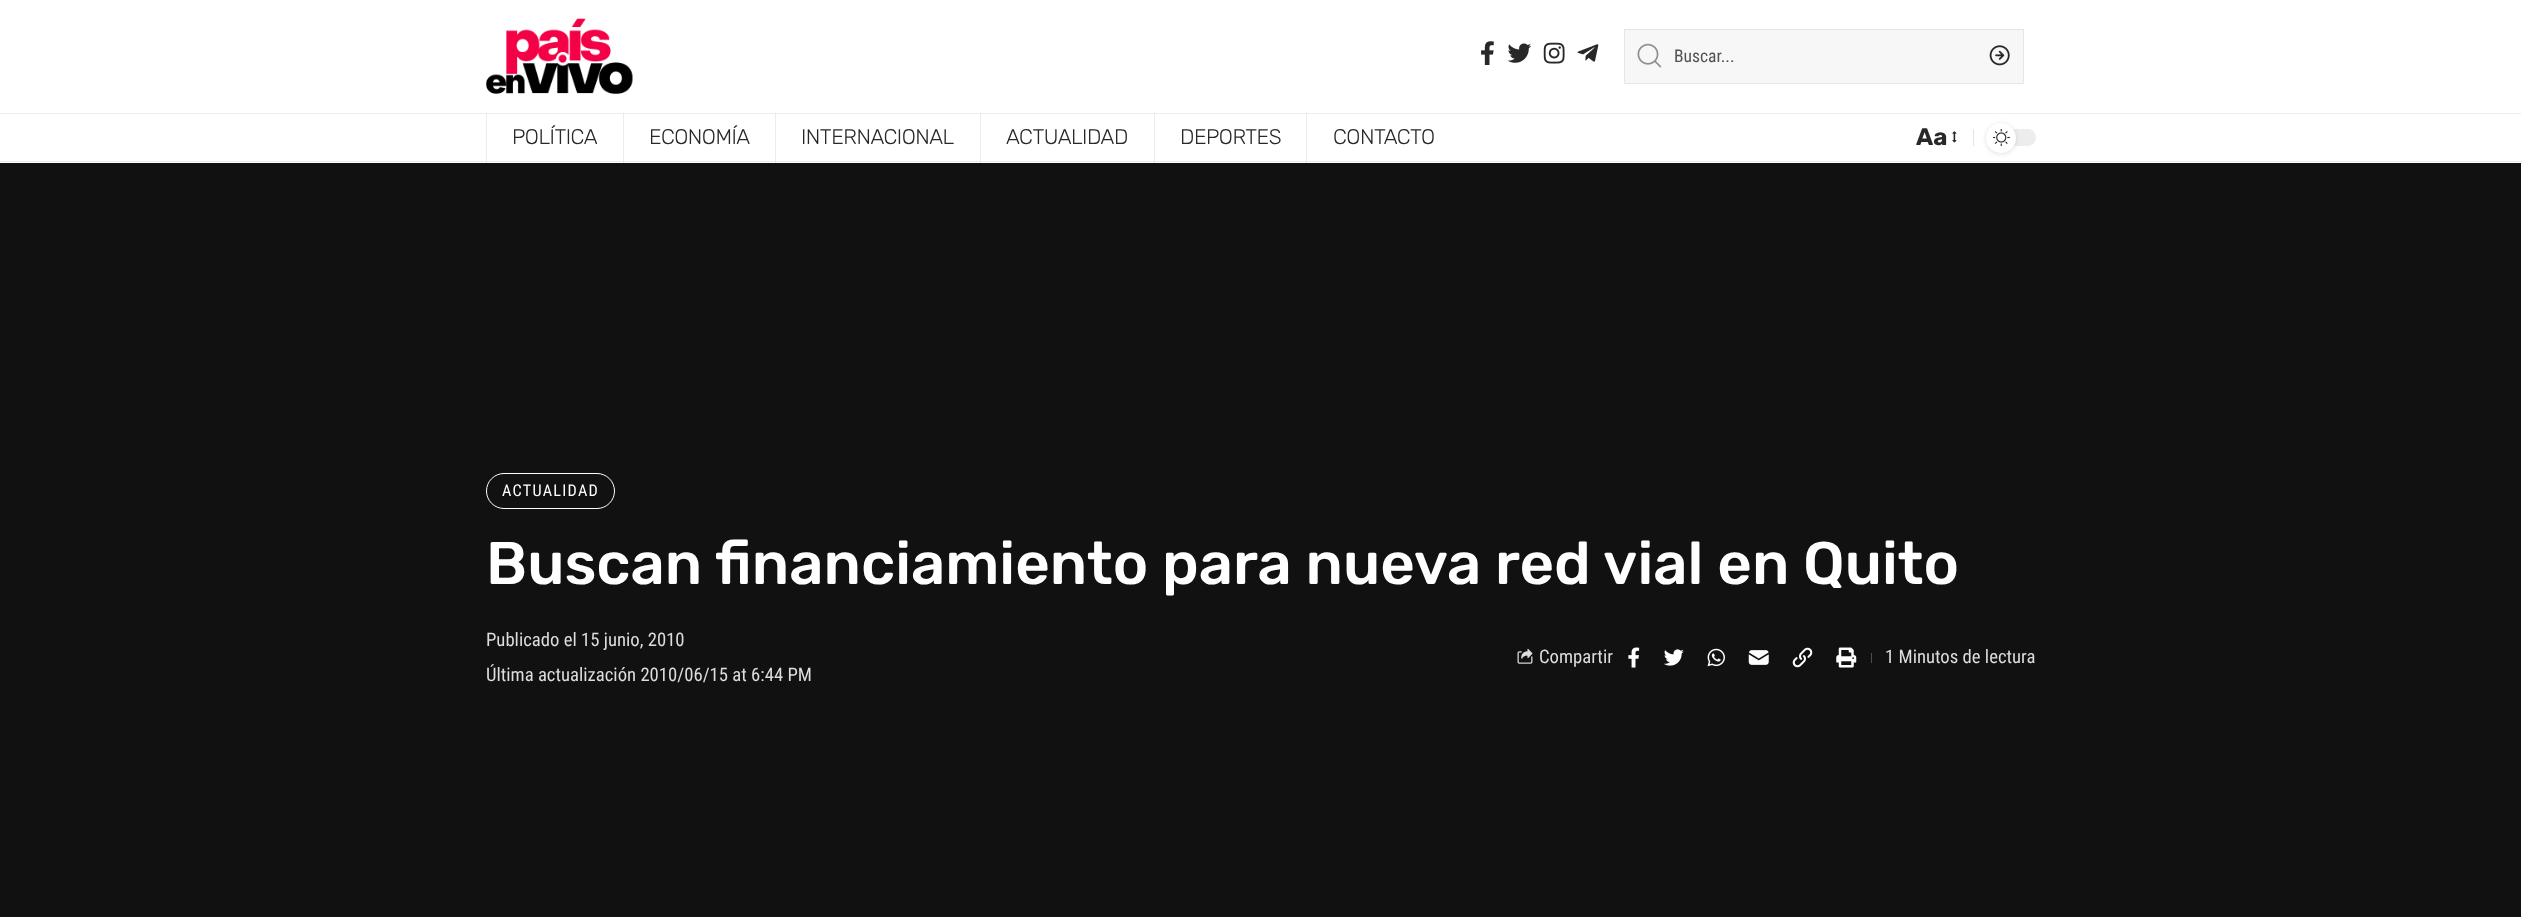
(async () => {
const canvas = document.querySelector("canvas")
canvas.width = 2521
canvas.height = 917
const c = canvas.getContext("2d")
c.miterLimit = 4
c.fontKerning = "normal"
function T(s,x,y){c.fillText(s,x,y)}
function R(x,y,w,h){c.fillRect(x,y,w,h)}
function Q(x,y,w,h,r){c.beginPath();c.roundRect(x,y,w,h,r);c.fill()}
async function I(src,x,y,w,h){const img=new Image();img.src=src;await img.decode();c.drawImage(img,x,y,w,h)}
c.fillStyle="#fff"
R(0,0,2521,917)
c.fillStyle="#ededed"
R(0,161,2521,1)
R(1306,113,1,50)
c.fillStyle="#dedede"
R(1306,161,1,1)
c.fillStyle="#ededed"
R(1154,113,1,50)
c.fillStyle="#dedede"
R(1154,161,1,1)
c.fillStyle="#ededed"
R(980,113,1,50)
c.fillStyle="#dedede"
R(980,161,1,1)
c.fillStyle="#ededed"
R(775,113,1,50)
c.fillStyle="#dedede"
R(775,161,1,1)
c.fillStyle="#ededed"
R(623,113,1,50)
c.fillStyle="#dedede"
R(623,161,1,1)
c.fillStyle="#ededed"
R(486,113,1,50)
c.fillStyle="#dedede"
R(486,161,1,1)
await I("1.png",486,18,147,76)
await I("2.png",1481,41,13,24)
await I("3.png",1507,43,25,20)
await I("4.png",1543,42,22,22)
await I("5.png",1577,44,22,18)
c.fillStyle="#f7f7f7"
c.beginPath()
c.rect(1624.5,29.5,399,54)
c.fill()
c.strokeStyle="#e6e6e6"
c.stroke()
await I("6.png",1637,43,25,25)
c.font="17.5px Roboto Condensed"
c.fillStyle="#515151"
T("Buscar...",1674,62)
await I("7.png",1989,45,21,21)
c.fillStyle="#ededed"
R(0,113,2521,1)
c.fillStyle="#dedede"
R(1306,113,1,1)
R(1154,113,1,1)
R(980,113,1,1)
R(775,113,1,1)
R(623,113,1,1)
R(486,113,1,1)
c.letterSpacing="-0.5px"
c.font="300 21.25px Rubik"
c.fillStyle="#282828"
T("POLÍTICA",512,144)
T("ECONOMÍA",649,144)
T("INTERNACIONAL",801,144)
T("ACTUALIDAD",1006,144)
T("DEPORTES",1180,144)
T("CONTACTO",1333,144)
c.letterSpacing="0px"
c.font="bold 24px Rubik"
T("Aa",1916,145)
await I("8.png",1952,131,5,12)
c.fillStyle="#e4e4e4"
R(1973,129,1,17)
c.fillStyle="#ededed"
Q(1986,129,50,17,8.5)
c.fillStyle="#0000001f"
c.filter="blur(2.5px)"
c.beginPath()
c.roundRect(1986,124,30,30,15)
c.fill()
c.filter="none"
c.fillStyle="#fff"
c.beginPath()
c.arc(2001,138,15,0,7)
c.fill()
await I("9.png",1993,129,17,17)
c.fillStyle="#111"
R(0,163,2521,754)
c.beginPath()
c.roundRect(486.5,473.5,128,35,17.5)
c.strokeStyle="#fff"
c.stroke()
c.letterSpacing="1.25px"
c.font="16.25px Roboto Condensed"
c.fillStyle="#fff"
T("ACTUALIDAD",502,496)
c.letterSpacing="0px"
c.font="500 60px Rubik"
T("Buscan financiamiento para nueva red vial en Quito",486,584)
c.font="18.7px Roboto Condensed"
c.fillStyle="#ddd"
T("Publicado el 15 junio, 2010",486,646)
T("Última actualización 2010/06/15 at 6:44 PM",486,681)
await I("10.png",1517,648,16,16)
T("Compartir",1539,663)
await I("11.png",1628,647,12,21)
await I("12.png",1664,649,20,17)
await I("13.png",1707,648,18,19)
await I("14.png",1748,650,21,15)
await I("15.png",1792,647,21,21)
await I("16.png",1836,647,21,21)
c.fillStyle="#4e4e4e"
R(1871,653,1,10)
c.fillStyle="#ddd"
T("1 Minutos de lectura",1885,663)
})()
